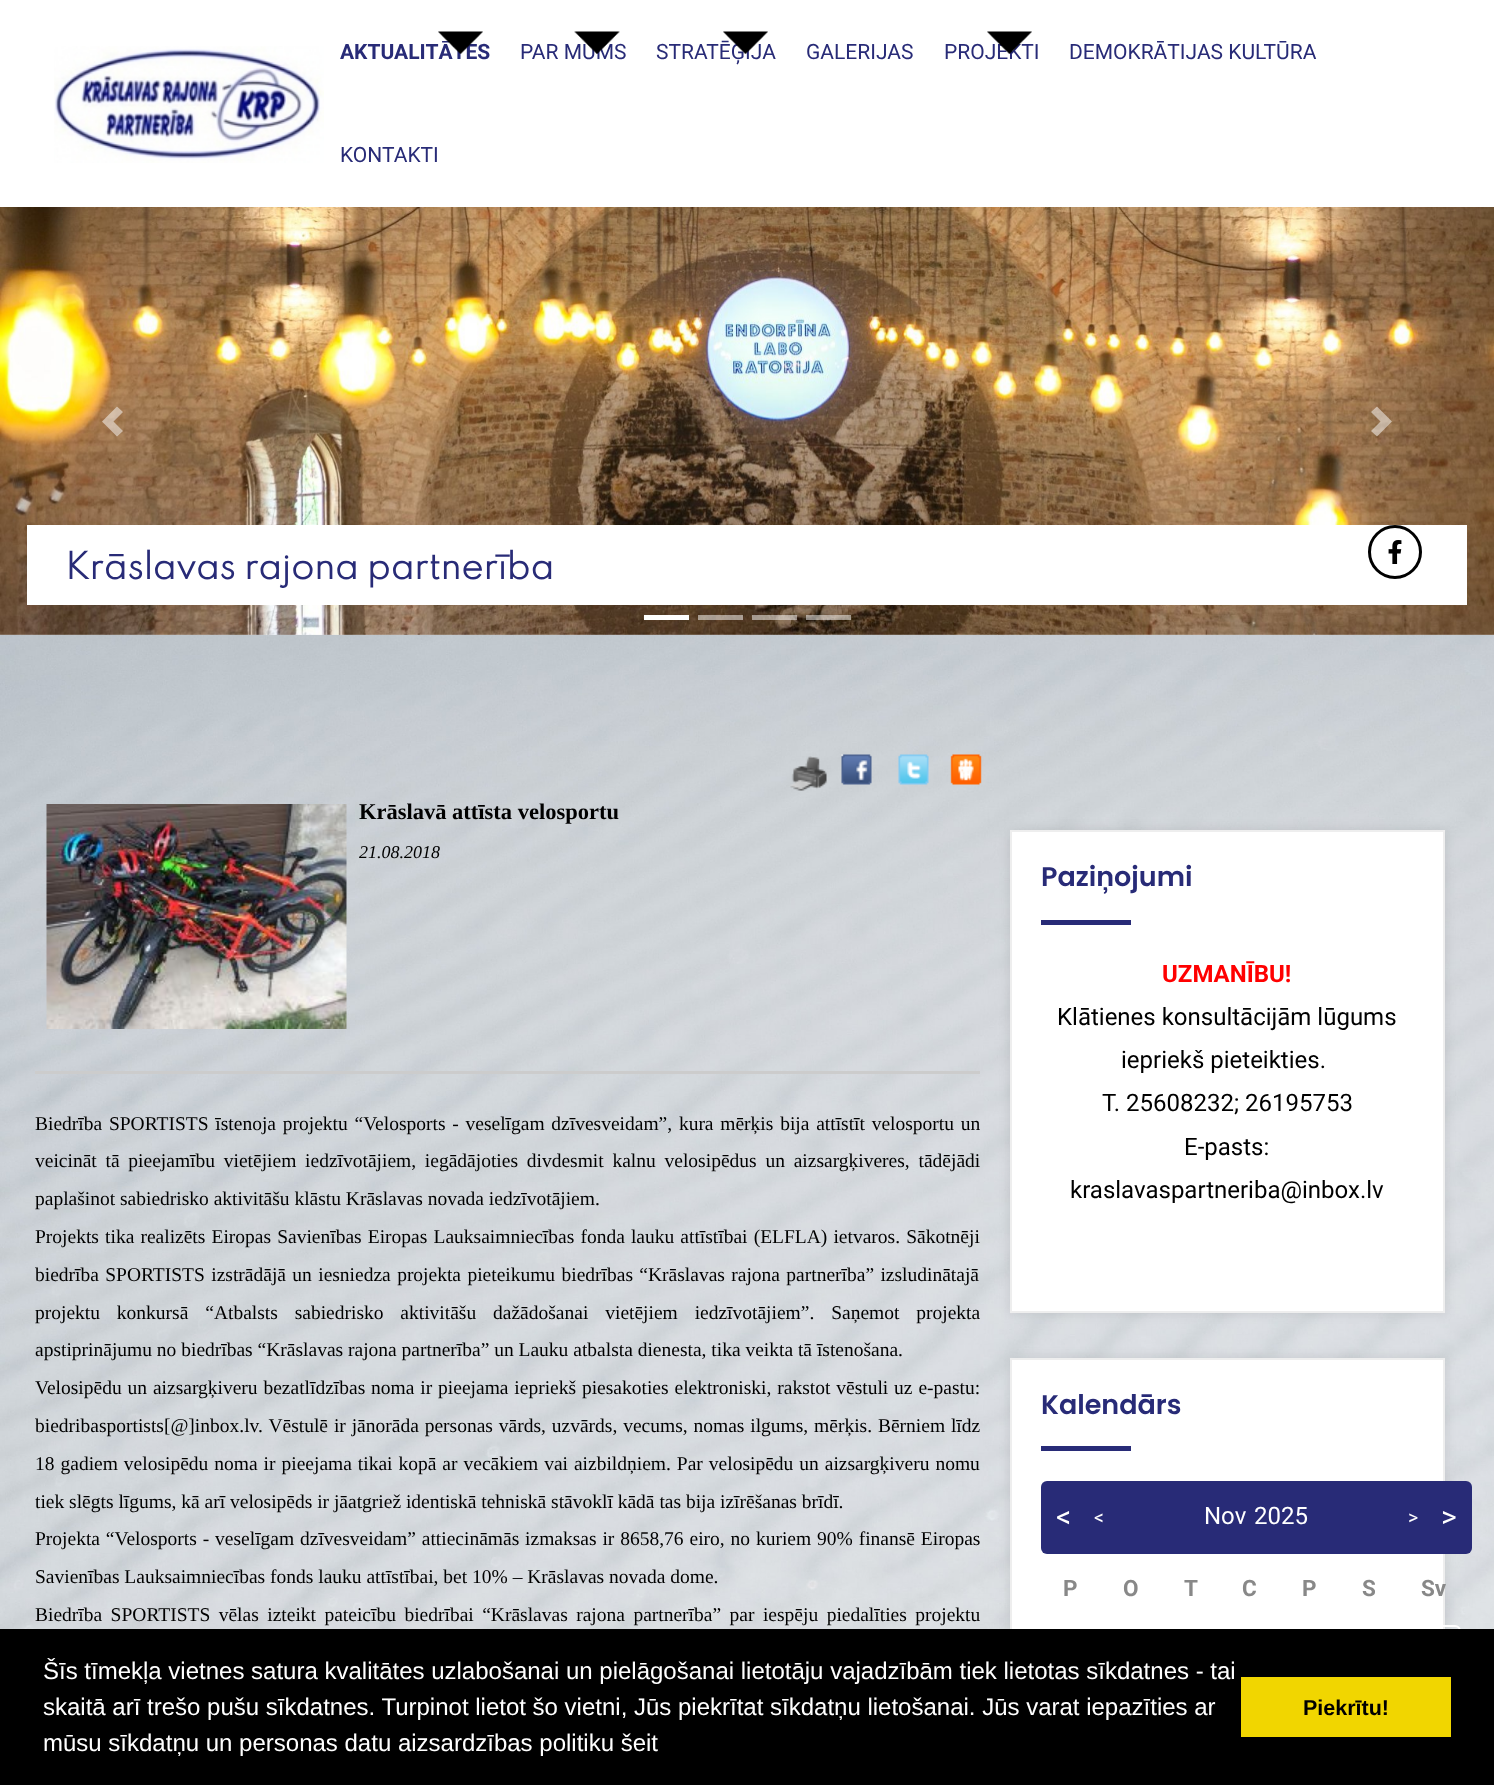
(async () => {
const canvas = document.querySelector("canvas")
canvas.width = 1494
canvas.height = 1785
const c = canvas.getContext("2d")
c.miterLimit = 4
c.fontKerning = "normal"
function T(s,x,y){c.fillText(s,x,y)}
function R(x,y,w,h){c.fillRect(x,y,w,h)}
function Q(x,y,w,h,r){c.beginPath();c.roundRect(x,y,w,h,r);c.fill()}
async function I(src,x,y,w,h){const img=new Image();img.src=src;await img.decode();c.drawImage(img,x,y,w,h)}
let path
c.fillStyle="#fff"
R(0,0,1494,1785)
await I("1.png",54,46,270,117)
c.font="bold 21px Roboto"
c.fillStyle="#282b77"
T("AKTUALITĀTES",340,59)
await I("2.png",438,31,45,23)
c.font="21px Roboto"
T("PAR MUMS",520,59)
await I("3.png",574,31,46,23)
T("STRATĒĢIJA",656,59)
await I("4.png",723,31,45,23)
T("GALERIJAS",806,59)
T("PROJEKTI",944,59)
await I("5.png",987,31,45,23)
T("DEMOKRĀTIJAS KULTŪRA",1069,59)
T("KONTAKTI",340,162)
await I("8.png",0,634,1494,995)
await I("6.png",0,207,1494,428)
c.fillStyle="#ffffff80"
path = new Path2D("M117 406.5l-15 15l15 15l6-5.5l-9.5-9.5l9.5-9.5z")
c.fill(path)
path = new Path2D("M1377 406.5l-6 5.5l9.5 9.5l-9.5 9.5l6 5.5l15-15z")
c.fill(path)
c.fillStyle="#fff"
R(27,525,1440,80)
c.font="bold 33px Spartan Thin"
c.fillStyle="#282b77"
T("Krāslavas rajona partnerība",65,579)
c.beginPath()
c.arc(1395,552,25.5,0,7)
c.strokeStyle="#000"
c.lineWidth=3
c.stroke()
await I("7.png",1388,540,14,24)
c.fillStyle="#fff"
R(644,615,45,5)
c.fillStyle="#ffffff80"
R(698,615,45,5)
R(752,615,45,5)
R(806,615,45,5)
await I("9.png",790,756,37,35)
await I("10.png",841,754,31,31)
await I("11.png",898,754,31,31)
await I("12.png",950,754,32,31)
await I("13.png",46,804,301,225)
c.font="bold 22.5px Liberation Serif"
c.fillStyle="#000"
T("Krāslavā attīsta velosportu",359,819)
c.font="italic 18px Liberation Serif"
T("21.08.2018",359,858)
c.fillStyle="#ccc"
R(35,1071,945,3)
c.wordSpacing="1.9px"
c.font="19.5px Liberation Serif"
c.fillStyle="#000"
T("Biedrība SPORTISTS īstenoja projektu “Velosports - veselīgam dzīvesveidam”, kura mērķis bija attīstīt velosportu un",35,1130)
c.wordSpacing="3.9px"
T("veicināt tā pieejamību vietējiem iedzīvotājiem, iegādājoties divdesmit kalnu velosipēdus un aizsargķiveres, tādējādi",35,1167)
c.wordSpacing="0px"
T("paplašinot sabiedrisko aktivitāšu klāstu Krāslavas novada iedzīvotājiem.",35,1205)
c.wordSpacing="1.25px"
T("Projekts tika realizēts Eiropas Savienības Eiropas Lauksaimniecības fonda lauku attīstībai (ELFLA) ietvaros. Sākotnēji",35,1243)
c.wordSpacing="1.5px"
T("biedrība SPORTISTS izstrādājā un iesniedza projekta pieteikumu biedrības “Krāslavas rajona partnerība” izsludinātajā",35,1281)
c.wordSpacing="12px"
T("projektu konkursā “Atbalsts sabiedrisko aktivitāšu dažādošanai vietējiem iedzīvotājiem”. Saņemot projekta",35,1319)
c.wordSpacing="0px"
T("apstiprinājumu no biedrības “Krāslavas rajona partnerība” un Lauku atbalsta dienesta, tika veikta tā īstenošana.",35,1356)
c.wordSpacing="1px"
T("Velosipēdu un aizsargķiveru bezatlīdzības noma ir pieejama iepriekš piesakoties elektroniski, rakstot vēstuli uz e-pastu:",35,1394)
T("biedribasportists[@]inbox.lv. Vēstulē ir jānorāda personas vārds, uzvārds, vecums, nomas ilgums, mērķis. Bērniem līdz",35,1432)
c.wordSpacing="1.1px"
T("18 gadiem velosipēdu noma ir pieejama tikai kopā ar vecākiem vai aizbildņiem. Par velosipēdu un aizsargķiveru nomu",35,1470)
c.wordSpacing="0px"
T("tiek slēgts līgums, kā arī velosipēds ir jāatgriež identiskā tehniskā stāvoklī kādā tas bija izīrēšanas brīdī.",35,1508)
c.wordSpacing="1px"
T("Projekta “Velosports - veselīgam dzīvesveidam” attiecināmās izmaksas ir 8658,76 eiro, no kuriem 90% finansē Eiropas",35,1545)
c.wordSpacing="0px"
T("Savienības Lauksaimniecības fonds lauku attīstībai, bet 10% – Krāslavas novada dome.",35,1583)
c.wordSpacing="3.6px"
T("Biedrība SPORTISTS vēlas izteikt pateicību biedrībai “Krāslavas rajona partnerība” par iespēju piedalīties projektu",35,1621)
c.fillStyle="#0000001a"
c.filter="blur(6px)"
c.beginPath()
c.rect(1010,830,435,483)
c.fill()
c.filter="none"
c.fillStyle="#fff"
c.beginPath()
c.rect(1011,831,433,481)
c.fill()
c.strokeStyle="#eee"
c.lineWidth=2
c.stroke()
c.wordSpacing="0px"
c.font="600 27px Poppins"
c.fillStyle="#282b77"
T("Paziņojumi",1041,886)
R(1041,920,90,5)
c.font="bold 24px Roboto"
c.fillStyle="#f00"
T("UZMANĪBU!",1162,982)
c.font="24px Roboto"
c.fillStyle="#000"
T("Klātienes konsultācijām lūgums",1057,1025)
T("iepriekš pieteikties.",1121,1068)
T("T. 25608232; 26195753",1102,1111)
T("E-pasts:",1184,1155)
T("kraslavaspartneriba@inbox.lv",1070,1198)
c.fillStyle="#0000001a"
c.filter="blur(6px)"
c.beginPath()
c.rect(1010,1358,435,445)
c.fill()
c.filter="none"
c.fillStyle="#fff"
R(1012,1360,431,269)
c.strokeRect(1011,1359,433,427)
c.font="600 27px Poppins"
c.fillStyle="#282b77"
T("Kalendārs",1041,1414)
R(1041,1446,90,5)
Q(1041,1481,431,73,6)
c.font="30px Roboto"
c.fillStyle="#fff"
T("<",1056,1527)
c.font="19.5px Roboto"
T("<",1094,1524)
c.font="24px Roboto"
T("Nov",1204,1524)
T("2025",1254,1524)
c.font="19.5px Roboto"
T(">",1408,1524)
c.font="30px Roboto"
T(">",1441,1527)
c.font="bold 22.5px Roboto"
c.fillStyle="#888"
T("P",1063,1596)
T("O",1123,1596)
T("T",1184,1596)
T("C",1242,1596)
T("P",1302,1596)
T("S",1362,1596)
T("Sv",1421,1596)
c.beginPath()
c.roundRect(1402,1626,58,58,5)
c.strokeStyle="#fff"
c.stroke()
c.fillStyle="#000"
R(0,1629,1494,156)
c.font="24px Liberation Sans"
c.fillStyle="#fff"
T("Šīs tīmekļa vietnes satura kvalitātes uzlabošanai un pielāgošanai lietotāju vajadzībām tiek lietotas sīkdatnes - tai",43,1679)
T("skaitā arī trešo pušu sīkdatnes. Turpinot lietot šo vietni, Jūs piekrītat sīkdatņu lietošanai. Jūs varat iepazīties ar",43,1715)
T("mūsu sīkdatņu un personas datu aizsardzības politiku šeit",43,1751)
c.fillStyle="#f1d600"
R(1241,1677,210,60)
c.font="bold 21.5px Liberation Sans"
c.fillStyle="#000"
T("Piekrītu!",1303,1715)
})()
